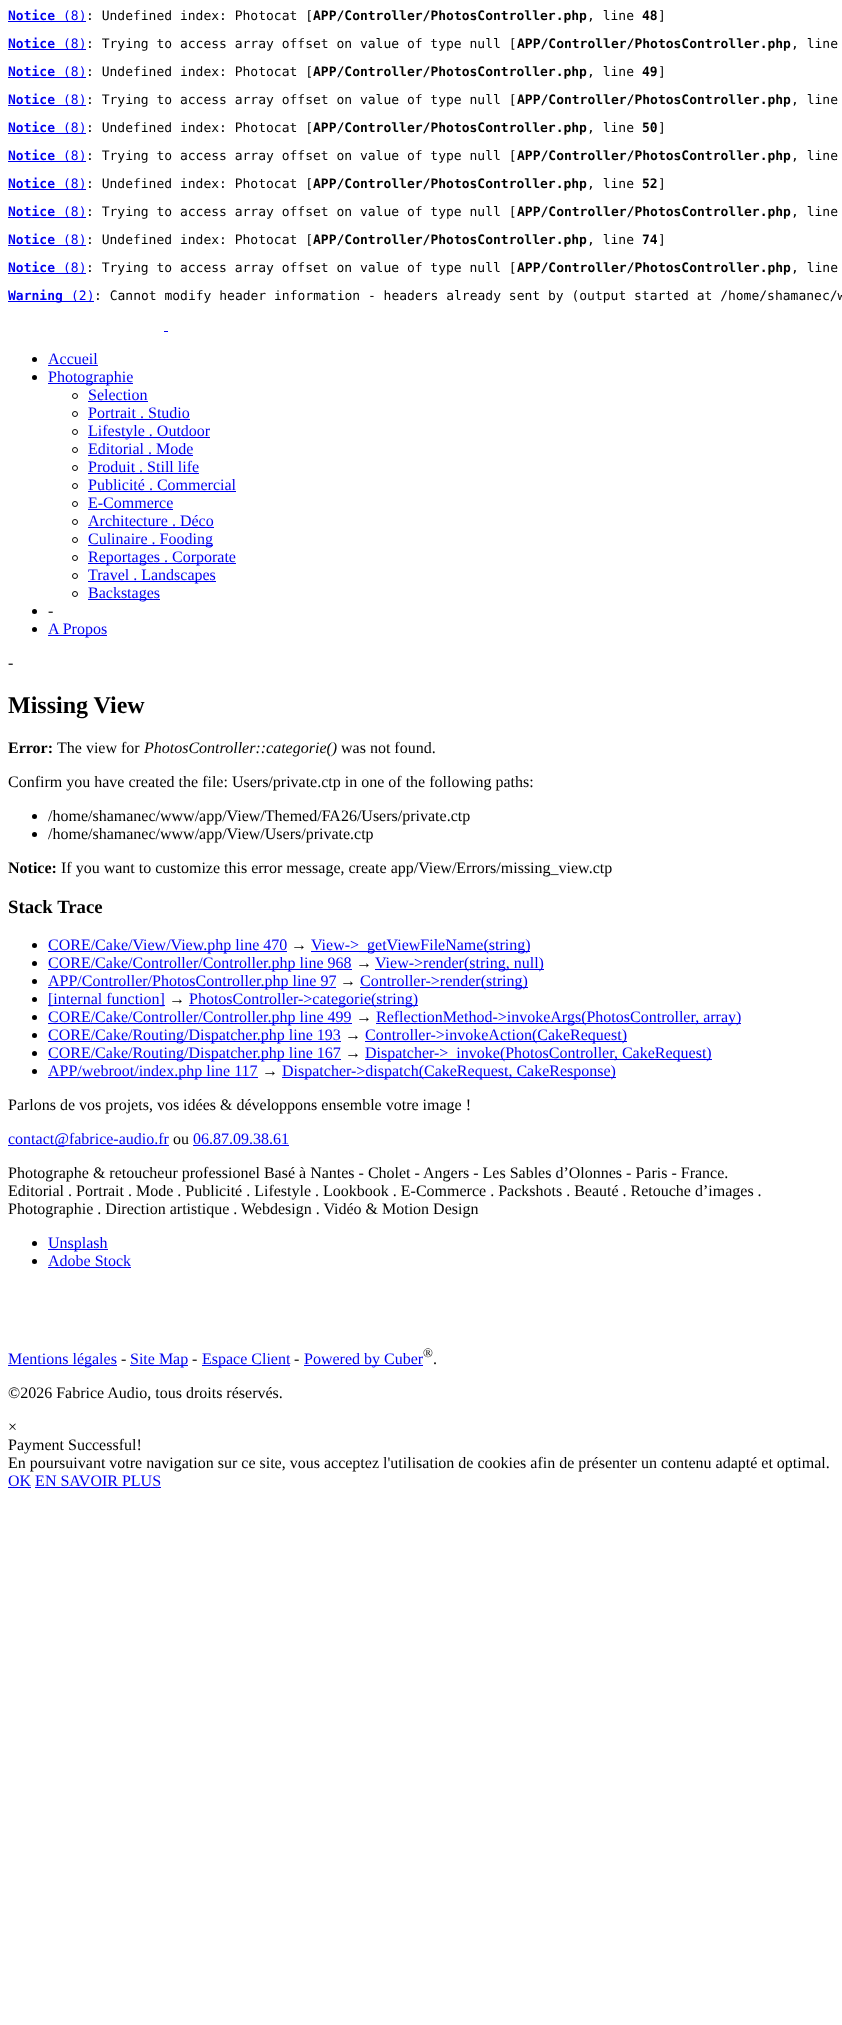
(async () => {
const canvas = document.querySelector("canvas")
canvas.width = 842
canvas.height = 2025
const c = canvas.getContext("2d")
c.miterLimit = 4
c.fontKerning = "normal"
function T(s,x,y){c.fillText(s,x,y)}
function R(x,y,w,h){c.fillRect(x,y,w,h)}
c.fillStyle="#fff"
R(0,0,842,2025)
c.font="bold 13px DejaVu Sans Mono"
c.fillStyle="#00e"
T("Notice",8,20)
R(8,21,78,1)
c.font="13px DejaVu Sans Mono"
T("(8)",63,20)
c.fillStyle="#000"
T(": Undefined index: Photocat [",86,20)
c.font="bold 13px DejaVu Sans Mono"
T("APP/Controller/PhotosController.php",313,20)
c.font="13px DejaVu Sans Mono"
T(", line",587,20)
c.font="bold 13px DejaVu Sans Mono"
T("48",642,20)
c.font="13px DejaVu Sans Mono"
T("]",658,20)
c.font="bold 13px DejaVu Sans Mono"
c.fillStyle="#00e"
T("Notice",8,48)
R(8,49,78,1)
c.font="13px DejaVu Sans Mono"
T("(8)",63,48)
c.fillStyle="#000"
T(": Trying to access array offset on value of type null [",86,48)
c.font="bold 13px DejaVu Sans Mono"
T("APP/Controller/PhotosController.php",517,48)
c.font="13px DejaVu Sans Mono"
T(", line",791,48)
c.font="bold 13px DejaVu Sans Mono"
c.fillStyle="#00e"
T("Notice",8,76)
R(8,77,78,1)
c.font="13px DejaVu Sans Mono"
T("(8)",63,76)
c.fillStyle="#000"
T(": Undefined index: Photocat [",86,76)
c.font="bold 13px DejaVu Sans Mono"
T("APP/Controller/PhotosController.php",313,76)
c.font="13px DejaVu Sans Mono"
T(", line",587,76)
c.font="bold 13px DejaVu Sans Mono"
T("49",642,76)
c.font="13px DejaVu Sans Mono"
T("]",658,76)
c.font="bold 13px DejaVu Sans Mono"
c.fillStyle="#00e"
T("Notice",8,104)
R(8,105,78,1)
c.font="13px DejaVu Sans Mono"
T("(8)",63,104)
c.fillStyle="#000"
T(": Trying to access array offset on value of type null [",86,104)
c.font="bold 13px DejaVu Sans Mono"
T("APP/Controller/PhotosController.php",517,104)
c.font="13px DejaVu Sans Mono"
T(", line",791,104)
c.font="bold 13px DejaVu Sans Mono"
c.fillStyle="#00e"
T("Notice",8,132)
R(8,133,78,1)
c.font="13px DejaVu Sans Mono"
T("(8)",63,132)
c.fillStyle="#000"
T(": Undefined index: Photocat [",86,132)
c.font="bold 13px DejaVu Sans Mono"
T("APP/Controller/PhotosController.php",313,132)
c.font="13px DejaVu Sans Mono"
T(", line",587,132)
c.font="bold 13px DejaVu Sans Mono"
T("50",642,132)
c.font="13px DejaVu Sans Mono"
T("]",658,132)
c.font="bold 13px DejaVu Sans Mono"
c.fillStyle="#00e"
T("Notice",8,160)
R(8,161,78,1)
c.font="13px DejaVu Sans Mono"
T("(8)",63,160)
c.fillStyle="#000"
T(": Trying to access array offset on value of type null [",86,160)
c.font="bold 13px DejaVu Sans Mono"
T("APP/Controller/PhotosController.php",517,160)
c.font="13px DejaVu Sans Mono"
T(", line",791,160)
c.font="bold 13px DejaVu Sans Mono"
c.fillStyle="#00e"
T("Notice",8,188)
R(8,189,78,1)
c.font="13px DejaVu Sans Mono"
T("(8)",63,188)
c.fillStyle="#000"
T(": Undefined index: Photocat [",86,188)
c.font="bold 13px DejaVu Sans Mono"
T("APP/Controller/PhotosController.php",313,188)
c.font="13px DejaVu Sans Mono"
T(", line",587,188)
c.font="bold 13px DejaVu Sans Mono"
T("52",642,188)
c.font="13px DejaVu Sans Mono"
T("]",658,188)
c.font="bold 13px DejaVu Sans Mono"
c.fillStyle="#00e"
T("Notice",8,216)
R(8,217,78,1)
c.font="13px DejaVu Sans Mono"
T("(8)",63,216)
c.fillStyle="#000"
T(": Trying to access array offset on value of type null [",86,216)
c.font="bold 13px DejaVu Sans Mono"
T("APP/Controller/PhotosController.php",517,216)
c.font="13px DejaVu Sans Mono"
T(", line",791,216)
c.font="bold 13px DejaVu Sans Mono"
c.fillStyle="#00e"
T("Notice",8,244)
R(8,245,78,1)
c.font="13px DejaVu Sans Mono"
T("(8)",63,244)
c.fillStyle="#000"
T(": Undefined index: Photocat [",86,244)
c.font="bold 13px DejaVu Sans Mono"
T("APP/Controller/PhotosController.php",313,244)
c.font="13px DejaVu Sans Mono"
T(", line",587,244)
c.font="bold 13px DejaVu Sans Mono"
T("74",642,244)
c.font="13px DejaVu Sans Mono"
T("]",658,244)
c.font="bold 13px DejaVu Sans Mono"
c.fillStyle="#00e"
T("Notice",8,272)
R(8,273,78,1)
c.font="13px DejaVu Sans Mono"
T("(8)",63,272)
c.fillStyle="#000"
T(": Trying to access array offset on value of type null [",86,272)
c.font="bold 13px DejaVu Sans Mono"
T("APP/Controller/PhotosController.php",517,272)
c.font="13px DejaVu Sans Mono"
T(", line",791,272)
c.fillStyle="#00e"
R(8,301,86,1)
c.font="bold 13px DejaVu Sans Mono"
T("Warning",8,300)
c.font="13px DejaVu Sans Mono"
T("(2)",71,300)
c.fillStyle="#000"
T(": Cannot modify header information - headers already sent by (output started at /home/shamanec/w",94,300)
c.fillStyle="#00e"
R(164,331,4,1)
c.fillStyle="#000"
c.beginPath()
c.arc(34.5,359.5,2.5,0,7)
c.fill()
c.font="16px Liberation Serif"
c.fillStyle="#00e"
T("Accueil",48,364)
R(48,365,50,1)
c.fillStyle="#000"
c.beginPath()
c.arc(34.5,377.5,2.5,0,7)
c.fill()
c.fillStyle="#00e"
R(48,383,85,1)
T("Photographie",48,382)
c.beginPath()
c.arc(75,396,2.5,0,7)
c.strokeStyle="#000"
c.stroke()
T("Selection",88,400)
R(88,401,60,1)
c.beginPath()
c.arc(75,414,2.5,0,7)
c.stroke()
T("Portrait . Studio",88,418)
R(88,419,102,1)
c.beginPath()
c.arc(75,432,2.5,0,7)
c.stroke()
R(88,437,122,1)
T("Lifestyle . Outdoor",88,436)
c.beginPath()
c.arc(75,450,2.5,0,7)
c.stroke()
T("Editorial . Mode",88,454)
R(88,455,105,1)
c.beginPath()
c.arc(75,468,2.5,0,7)
c.stroke()
T("Produit . Still life",88,472)
R(88,473,111,1)
c.beginPath()
c.arc(75,486,2.5,0,7)
c.stroke()
T("Publicité . Commercial",88,490)
R(88,491,148,1)
c.beginPath()
c.arc(75,504,2.5,0,7)
c.stroke()
T("E-Commerce",88,508)
R(88,509,85,1)
c.beginPath()
c.arc(75,522,2.5,0,7)
c.stroke()
T("Architecture . Déco",88,526)
R(88,527,126,1)
c.beginPath()
c.arc(75,540,2.5,0,7)
c.stroke()
R(88,545,125,1)
T("Culinaire . Fooding",88,544)
c.beginPath()
c.arc(75,558,2.5,0,7)
c.stroke()
R(88,563,148,1)
T("Reportages . Corporate",88,562)
c.beginPath()
c.arc(75,576,2.5,0,7)
c.stroke()
R(88,581,128,1)
T("Travel . Landscapes",88,580)
c.beginPath()
c.arc(75,594,2.5,0,7)
c.stroke()
R(88,599,72,1)
T("Backstages",88,598)
c.fillStyle="#000"
c.beginPath()
c.arc(34.5,611.5,2.5,0,7)
c.fill()
T("-",48,616)
c.beginPath()
c.arc(34.5,629.5,2.5,0,7)
c.fill()
c.fillStyle="#00e"
R(48,635,59,1)
T("A Propos",48,634)
c.fillStyle="#000"
T("-",8,668)
c.font="bold 24px Liberation Serif"
T("Missing View",8,713)
c.font="bold 16px Liberation Serif"
T("Error:",8,753)
c.font="16px Liberation Serif"
T("The view for",57,753)
c.font="italic 16px Liberation Serif"
T("PhotosController::categorie()",144,753)
c.font="16px Liberation Serif"
T("was not found.",341,753)
T("Confirm you have created the file: Users/private.ctp in one of the following paths:",8,787)
c.beginPath()
c.arc(34.5,816.5,2.5,0,7)
c.fill()
T("/home/shamanec/www/app/View/Themed/FA26/Users/private.ctp",48,821)
c.beginPath()
c.arc(34.5,834.5,2.5,0,7)
c.fill()
T("/home/shamanec/www/app/View/Users/private.ctp",48,839)
c.font="bold 16px Liberation Serif"
T("Notice:",8,873)
c.font="16px Liberation Serif"
T("If you want to customize this error message, create app/View/Errors/missing_view.ctp",61,873)
c.font="bold 18.75px Liberation Serif"
T("Stack Trace",8,913)
c.beginPath()
c.arc(34.5,945.5,2.5,0,7)
c.fill()
c.fillStyle="#00e"
R(48,951,239,1)
c.font="16px Liberation Serif"
T("CORE/Cake/View/View.php line 470",48,950)
c.fillStyle="#000"
T("→",291,950)
c.fillStyle="#00e"
R(311,951,219,1)
T("View->_getViewFileName(string)",311,950)
c.fillStyle="#000"
c.beginPath()
c.arc(34.5,963.5,2.5,0,7)
c.fill()
c.fillStyle="#00e"
R(48,969,304,1)
T("CORE/Cake/Controller/Controller.php line 968",48,968)
c.fillStyle="#000"
T("→",356,968)
c.fillStyle="#00e"
R(375,969,169,1)
T("View->render(string, null)",375,968)
c.fillStyle="#000"
c.beginPath()
c.arc(34.5,981.5,2.5,0,7)
c.fill()
c.fillStyle="#00e"
R(48,987,288,1)
T("APP/Controller/PhotosController.php line 97",48,986)
c.fillStyle="#000"
T("→",340,986)
c.fillStyle="#00e"
R(360,987,168,1)
T("Controller->render(string)",360,986)
c.fillStyle="#000"
c.beginPath()
c.arc(34.5,999.5,2.5,0,7)
c.fill()
c.fillStyle="#00e"
R(48,1005,117,1)
T("[internal function]",48,1004)
c.fillStyle="#000"
T("→",169,1004)
c.fillStyle="#00e"
R(189,1005,229,1)
T("PhotosController->categorie(string)",189,1004)
c.fillStyle="#000"
c.beginPath()
c.arc(34.5,1017.5,2.5,0,7)
c.fill()
c.fillStyle="#00e"
R(48,1023,304,1)
T("CORE/Cake/Controller/Controller.php line 499",48,1022)
c.fillStyle="#000"
T("→",356,1022)
c.fillStyle="#00e"
R(376,1023,365,1)
T("ReflectionMethod->invokeArgs(PhotosController, array)",376,1022)
c.fillStyle="#000"
c.beginPath()
c.arc(34.5,1035.5,2.5,0,7)
c.fill()
c.fillStyle="#00e"
R(48,1041,293,1)
T("CORE/Cake/Routing/Dispatcher.php line 193",48,1040)
c.fillStyle="#000"
T("→",345,1040)
c.fillStyle="#00e"
R(365,1041,262,1)
T("Controller->invokeAction(CakeRequest)",365,1040)
c.fillStyle="#000"
c.beginPath()
c.arc(34.5,1053.5,2.5,0,7)
c.fill()
c.fillStyle="#00e"
R(48,1059,293,1)
T("CORE/Cake/Routing/Dispatcher.php line 167",48,1058)
c.fillStyle="#000"
T("→",345,1058)
c.fillStyle="#00e"
R(365,1059,347,1)
T("Dispatcher->_invoke(PhotosController, CakeRequest)",365,1058)
c.fillStyle="#000"
c.beginPath()
c.arc(34.5,1071.5,2.5,0,7)
c.fill()
c.fillStyle="#00e"
R(48,1077,210,1)
T("APP/webroot/index.php line 117",48,1076)
c.fillStyle="#000"
T("→",262,1076)
c.fillStyle="#00e"
R(282,1077,334,1)
T("Dispatcher->dispatch(CakeRequest, CakeResponse)",282,1076)
c.fillStyle="#000"
T("Parlons de vos projets, vos idées & développons ensemble votre image !",8,1110)
c.fillStyle="#00e"
R(8,1145,161,1)
T("contact@fabrice-audio.fr",8,1144)
c.fillStyle="#000"
T("ou",173,1144)
c.fillStyle="#00e"
T("06.87.09.38.61",193,1144)
R(193,1145,96,1)
c.fillStyle="#000"
T("Photographe & retoucheur professionel Basé à Nantes - Cholet - Angers - Les Sables d’Olonnes - Paris - France.",8,1178)
T("Editorial . Portrait . Mode . Publicité . Lifestyle . Lookbook . E-Commerce . Packshots . Beauté . Retouche d’images .",8,1196)
T("Photographie . Direction artistique . Webdesign . Vidéo & Motion Design",8,1214)
c.beginPath()
c.arc(34.5,1243.5,2.5,0,7)
c.fill()
c.fillStyle="#00e"
R(48,1249,60,1)
T("Unsplash",48,1248)
c.fillStyle="#000"
c.beginPath()
c.arc(34.5,1261.5,2.5,0,7)
c.fill()
c.fillStyle="#00e"
T("Adobe Stock",48,1266)
R(48,1267,83,1)
R(8,1365,109,1)
T("Mentions légales",8,1364)
c.fillStyle="#000"
T("-",121,1364)
c.fillStyle="#00e"
R(130,1365,58,1)
T("Site Map",130,1364)
c.fillStyle="#000"
T("-",192,1364)
c.fillStyle="#00e"
R(202,1365,88,1)
T("Espace Client",202,1364)
c.fillStyle="#000"
T("-",294,1364)
c.fillStyle="#00e"
R(304,1365,119,1)
T("Powered by Cuber",304,1364)
c.font="13px Liberation Serif"
c.fillStyle="#000"
T("®",423,1357)
c.font="16px Liberation Serif"
T(".",433,1364)
T("©2026 Fabrice Audio, tous droits réservés.",8,1398)
T("×",8,1432)
T("Payment Successful!",8,1450)
T("En poursuivant votre navigation sur ce site, vous acceptez l'utilisation de cookies afin de présenter un contenu adapté et optimal.",8,1468)
c.fillStyle="#00e"
T("OK EN SAVOIR PLUS",8,1486)
R(8,1487,23,1)
R(35,1487,126,1)
})()
